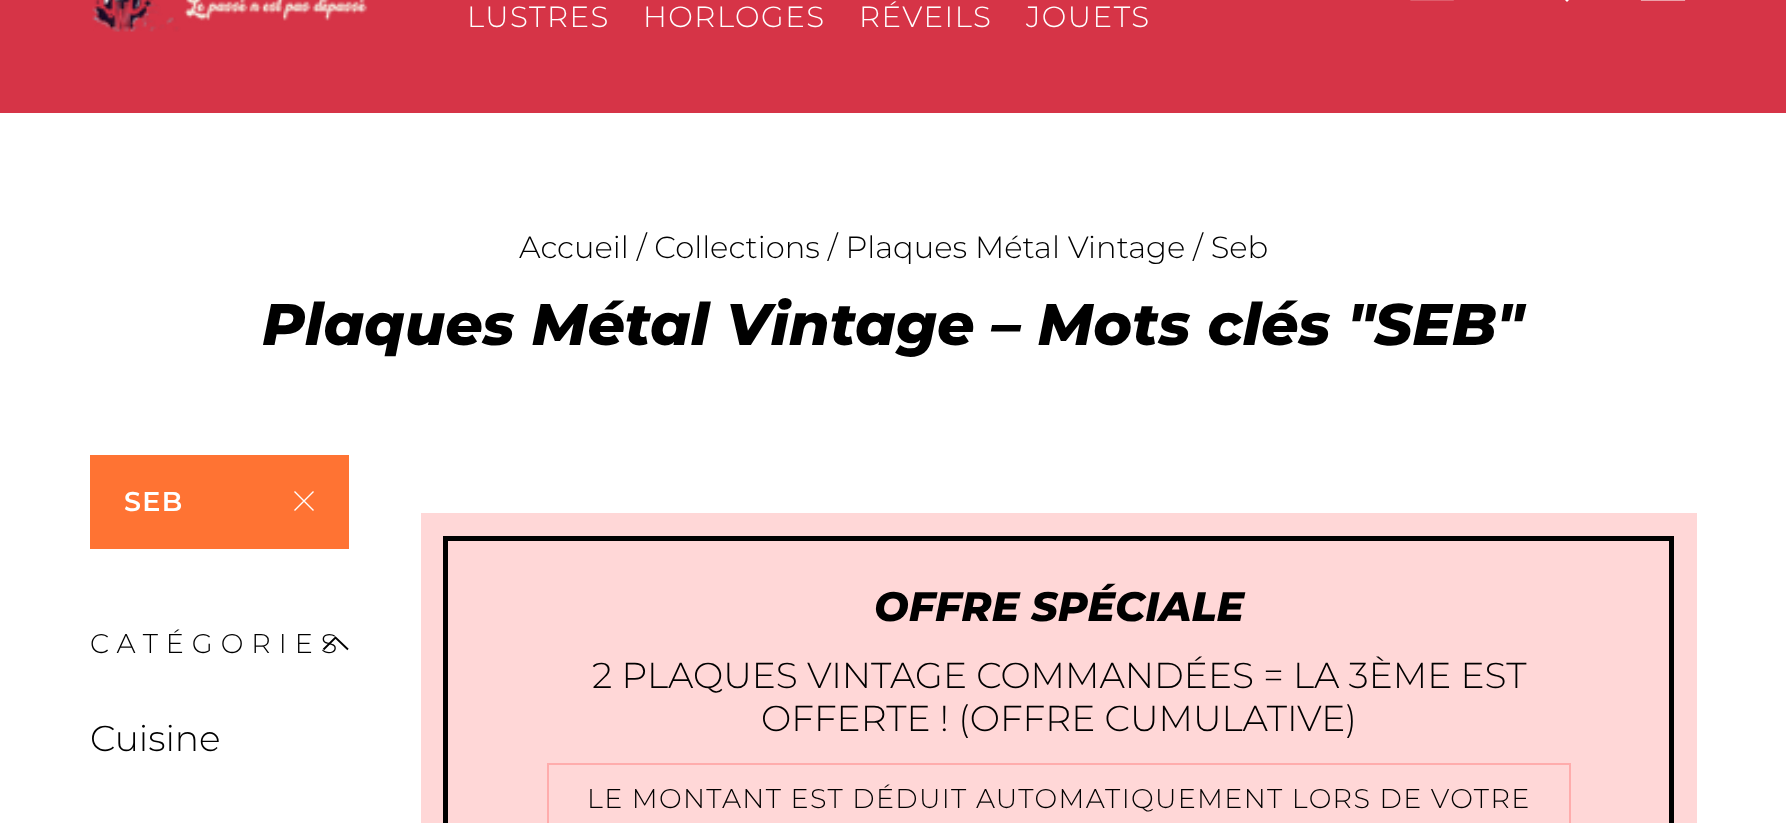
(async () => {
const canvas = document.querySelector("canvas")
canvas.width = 1786
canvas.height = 823
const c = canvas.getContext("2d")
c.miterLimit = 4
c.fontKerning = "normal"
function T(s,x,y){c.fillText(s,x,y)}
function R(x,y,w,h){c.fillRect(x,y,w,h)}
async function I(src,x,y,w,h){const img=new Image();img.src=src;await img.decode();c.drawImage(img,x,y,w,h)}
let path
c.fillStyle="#fff"
R(0,0,1786,823)
c.fillStyle="#d63447"
R(0,0,1786,113)
await I("1.png",92,0,276,32)
c.letterSpacing="1.5px"
c.font="300 29.25px Montserrat"
c.fillStyle="#fff"
T("LUSTRES",467,27)
T("HORLOGES",643,27)
T("RÉVEILS",859,27)
T("JOUETS",1026,27)
await I("2.png",1410,0,44,1)
path = new Path2D("M1545-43c-5 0-9 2-12 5c-15 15 4 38 21 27l13 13l4-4l-12-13c8-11 0-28-14-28zm0 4c17 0 17 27 0 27c-18 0-18-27 0-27z")
c.fill(path)
await I("3.png",1640,0,46,1)
c.letterSpacing="0px"
c.font="300 30.6px Montserrat"
c.fillStyle="#000"
T("Accueil / Collections / Plaques Métal Vintage / Seb",519,258)
c.font="italic 800 58.5px Montserrat"
T("Plaques Métal Vintage – Mots clés \"SEB\"",262,345)
c.fillStyle="#ff7333"
R(90,455,259,94)
c.letterSpacing="1.35px"
c.font="600 27px Montserrat"
c.fillStyle="#fff"
T("SEB",124,511)
path = new Path2D("M294.5 491.5l19 19m0-19l-19 19")
c.strokeStyle="#fff"
c.lineWidth=1.4
c.stroke(path)
c.letterSpacing="8px"
c.font="300 27px Montserrat"
c.fillStyle="#000"
T("CATÉGORIES",90,653)
path = new Path2D("M323.5 649.5l12-12l12.5 12")
c.strokeStyle="#000"
c.lineWidth=1.9
c.stroke(path)
c.letterSpacing="0px"
c.font="300 36px Montserrat"
T("Cuisine",90,751)
c.fillStyle="#ffd7d7"
R(421,513,1276,310)
c.strokeStyle="#ffacac"
c.lineWidth=2
c.strokeRect(548,764,1022,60)
c.strokeStyle="#000"
c.lineWidth=5
c.strokeRect(445.5,538.5,1226,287)
c.font="italic 800 41px Montserrat"
c.fillStyle="#000"
T("OFFRE SPÉCIALE",874,621)
c.font="300 36px Montserrat"
T("2 PLAQUES VINTAGE COMMANDÉES = LA 3ÈME EST",592,688)
T("OFFERTE ! (OFFRE CUMULATIVE)",761,731)
c.letterSpacing="1.35px"
c.font="300 27px Montserrat"
T("LE MONTANT EST DÉDUIT AUTOMATIQUEMENT LORS DE VOTRE",587,808)
})()
